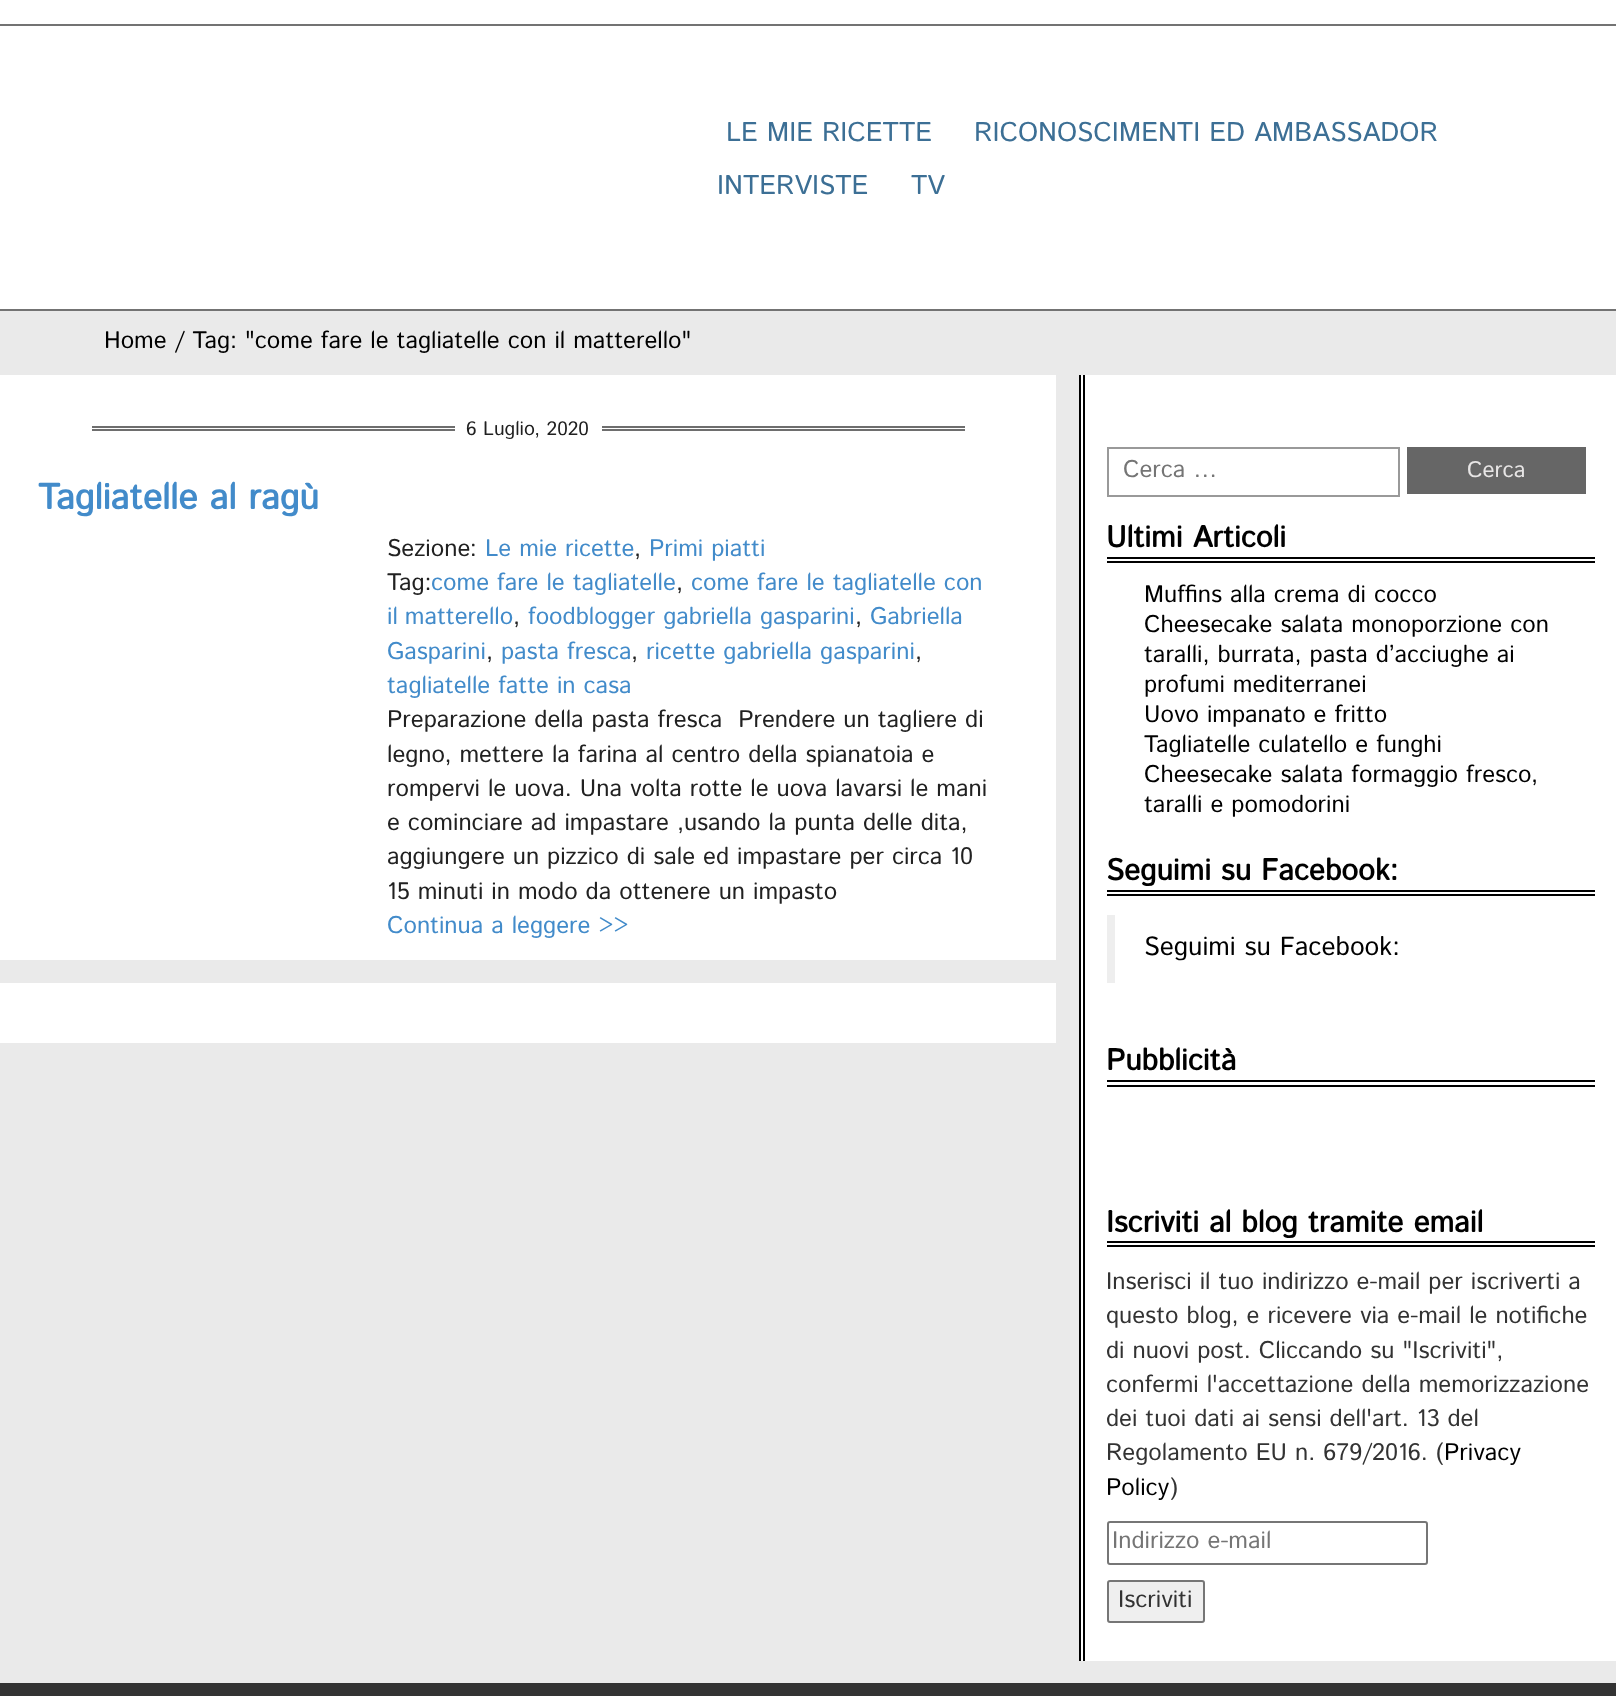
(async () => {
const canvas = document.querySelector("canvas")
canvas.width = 1616
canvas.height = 1696
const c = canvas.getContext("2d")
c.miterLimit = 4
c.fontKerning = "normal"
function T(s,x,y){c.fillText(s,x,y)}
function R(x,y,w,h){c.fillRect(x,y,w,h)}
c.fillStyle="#eaeaea"
R(0,0,1616,1696)
c.fillStyle="#fff"
R(0,0,1616,24)
R(0,26,1616,283)
c.fillStyle="#737373"
R(0,24,1616,2)
R(0,309,1616,2)
c.font="27px Istok Web"
c.fillStyle="#3c6f95"
T("LE MIE RICETTE",726,141)
T("RICONOSCIMENTI ED AMBASSADOR",974,141)
T("INTERVISTE",717,194)
T("TV",911,194)
c.font="24px Istok Web"
c.fillStyle="#000"
T("Home / Tag: \"come fare le tagliatelle con il matterello\"",104,348)
c.fillStyle="#fff"
R(0,375,1056,585)
c.fillStyle="#6e6e6e"
R(92,426,363,2)
R(92,429,363,2)
c.font="19.5px Istok Web"
c.fillStyle="#212121"
T("6 Luglio, 2020",466,435)
c.fillStyle="#6e6e6e"
R(602,426,363,2)
R(602,429,363,2)
c.font="bold 36px Istok Web"
c.fillStyle="#428bca"
T("Tagliatelle al ragù",38,509)
c.font="24px Istok Web"
c.fillStyle="#212121"
T("Sezione:",387,556)
c.fillStyle="#428bca"
T("Le mie ricette",485,556)
c.fillStyle="#212121"
T(",",634,556)
c.fillStyle="#428bca"
T("Primi piatti",649,556)
c.fillStyle="#212121"
T("Tag:",387,590)
c.fillStyle="#428bca"
T("come fare le tagliatelle",431,590)
c.fillStyle="#212121"
T(",",676,590)
c.fillStyle="#428bca"
T("come fare le tagliatelle con",691,590)
c.wordSpacing="-1px"
T("il matterello",387,624)
c.wordSpacing="0px"
c.fillStyle="#212121"
T(",",513,624)
c.fillStyle="#428bca"
T("foodblogger gabriella gasparini",528,624)
c.fillStyle="#212121"
T(",",855,624)
c.fillStyle="#428bca"
T("Gabriella",870,624)
T("Gasparini",387,659)
c.fillStyle="#212121"
T(",",486,659)
c.fillStyle="#428bca"
T("pasta fresca",501,659)
c.fillStyle="#212121"
T(",",631,659)
c.fillStyle="#428bca"
T("ricette gabriella gasparini",646,659)
c.fillStyle="#212121"
T(",",915,659)
c.fillStyle="#428bca"
T("tagliatelle fatte in casa",387,693)
c.fillStyle="#212121"
T("Preparazione della pasta fresca  Prendere un tagliere di",387,727)
T("legno, mettere la farina al centro della spianatoia e",387,762)
T("rompervi le uova. Una volta rotte le uova lavarsi le mani",387,796)
T("e cominciare ad impastare ,usando la punta delle dita,",387,830)
T("aggiungere un pizzico di sale ed impastare per circa 10",387,864)
T("15 minuti in modo da ottenere un impasto",387,899)
c.fillStyle="#428bca"
T("Continua a leggere >>",387,933)
c.fillStyle="#fff"
R(0,983,1056,60)
R(1081,375,535,1286)
c.fillStyle="#000"
R(1079,375,2,1286)
R(1083,375,2,1286)
c.strokeStyle="#999"
c.lineWidth=2
c.strokeRect(1108,448,291,48)
c.fillStyle="#757575"
T("Cerca …",1123,477)
c.fillStyle="#666"
R(1407,447,179,47)
c.font="22.5px Istok Web"
c.fillStyle="#e7e5e5"
T("Cerca",1467,477)
c.fillStyle="#000"
R(1107,557,488,2)
R(1107,561,488,2)
c.font="bold 30px Istok Web"
T("Ultimi Articoli",1106,547)
c.font="24px Istok Web"
T("Muffins alla crema di cocco",1144,602)
T("Cheesecake salata monoporzione con",1144,632)
T("taralli, burrata, pasta d’acciughe ai",1144,662)
T("profumi mediterranei",1144,692)
T("Uovo impanato e fritto",1144,722)
T("Tagliatelle culatello e funghi",1144,752)
T("Cheesecake salata formaggio fresco,",1144,782)
T("taralli e pomodorini",1144,812)
R(1107,890,488,2)
R(1107,894,488,2)
c.font="bold 30px Istok Web"
T("Seguimi su Facebook:",1106,880)
c.fillStyle="#eee"
R(1107,915,8,68)
c.font="26.25px Istok Web"
c.fillStyle="#000"
T("Seguimi su Facebook:",1144,955)
R(1107,1080,488,2)
R(1107,1085,488,2)
c.font="bold 30px Istok Web"
T("Pubblicità",1106,1070)
R(1107,1241,488,2)
R(1107,1245,488,2)
T("Iscriviti al blog tramite email",1106,1232)
c.font="24px Istok Web"
c.fillStyle="#333"
T("Inserisci il tuo indirizzo e-mail per iscriverti a",1106,1289)
T("questo blog, e ricevere via e-mail le notifiche",1106,1323)
T("di nuovi post. Cliccando su \"Iscriviti\",",1106,1358)
T("confermi l'accettazione della memorizzazione",1106,1392)
T("dei tuoi dati ai sensi dell'art. 13 del",1106,1426)
T("Regolamento EU n. 679/2016. (",1106,1460)
c.fillStyle="#000"
T("Privacy",1444,1460)
T("Policy",1106,1495)
c.fillStyle="#333"
T(")",1170,1495)
c.beginPath()
c.roundRect(1108,1522,319,42,2)
c.strokeStyle="#767676"
c.stroke()
c.fillStyle="#757575"
T("Indirizzo e-mail",1112,1548)
c.fillStyle="#efefef"
c.beginPath()
c.roundRect(1108,1581,96,41,2)
c.fill()
c.stroke()
c.fillStyle="#333"
T("Iscriviti",1118,1607)
R(0,1683,1616,13)
})()
